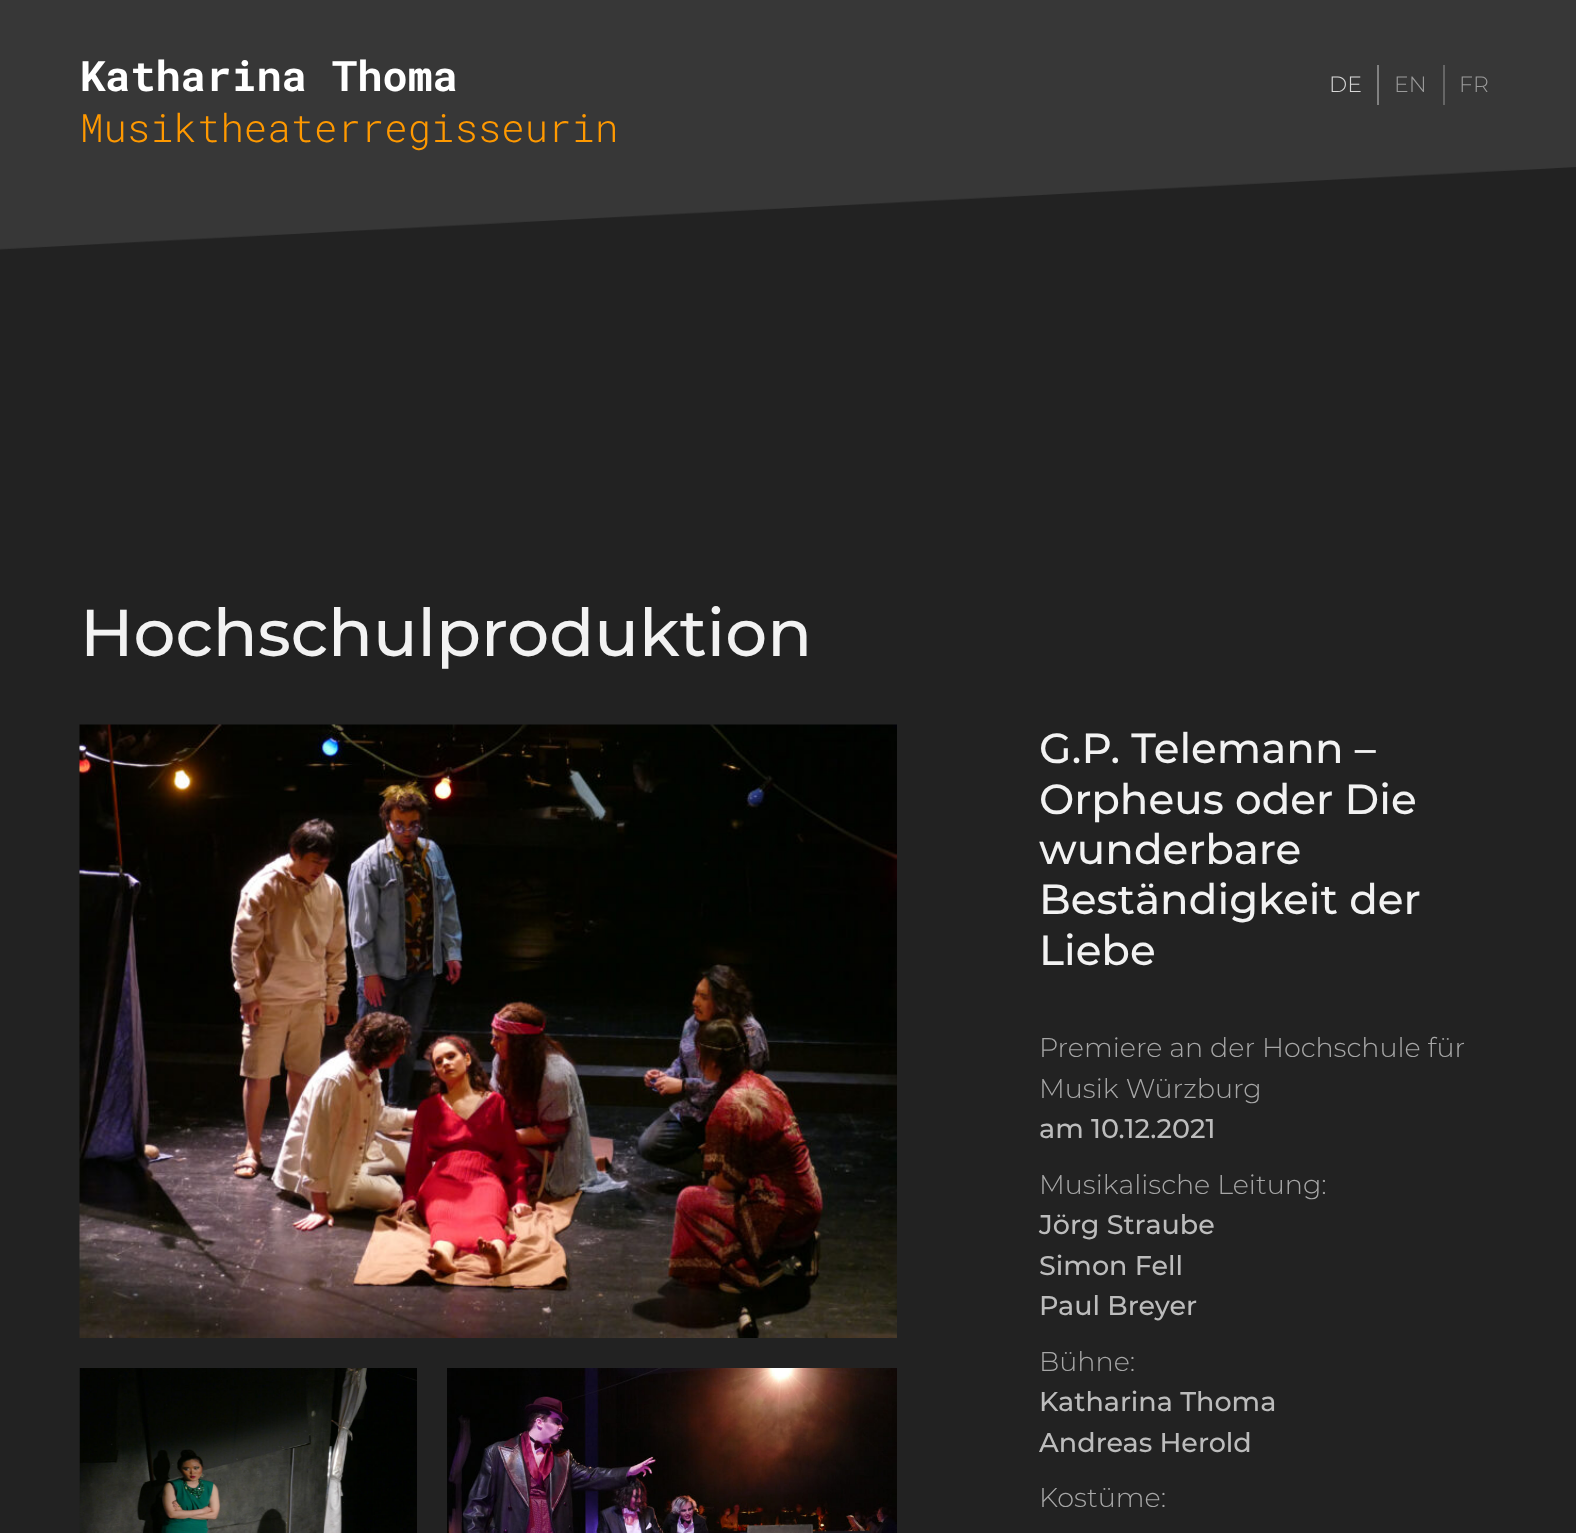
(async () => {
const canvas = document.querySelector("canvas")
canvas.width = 1576
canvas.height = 1533
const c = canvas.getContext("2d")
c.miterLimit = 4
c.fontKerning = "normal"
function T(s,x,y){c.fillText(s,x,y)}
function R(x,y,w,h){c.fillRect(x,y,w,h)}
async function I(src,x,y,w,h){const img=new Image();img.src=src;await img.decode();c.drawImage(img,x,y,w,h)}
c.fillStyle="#222"
R(0,0,1576,1533)
await I("1.png",0,0,1576,250)
c.font="bold 42px Roboto Mono"
c.fillStyle="#fff"
T("Katharina Thoma",80,91)
c.font="300 39px Roboto Mono"
c.fillStyle="#f90"
T("Musiktheaterregisseurin",80,142)
c.fillStyle="#818181"
R(1377,65,2,40)
c.font="300 22px Montserrat"
c.fillStyle="#d7d7d7"
T("DE",1329,92)
c.fillStyle="#656565"
R(1443,65,2,40)
c.fillStyle="#9b9b9b"
T("EN",1394,92)
T("FR",1459,92)
c.font="500 66px Montserrat"
c.fillStyle="#f2f2f2"
T("Hochschulproduktion",80,656)
await I("2.png",79,724,818,614)
await I("3.png",79,1368,338,165)
await I("4.png",447,1368,450,165)
c.font="500 42px Montserrat"
T("G.P. Telemann –",1039,763)
T("Orpheus oder Die",1039,814)
T("wunderbare",1039,864)
T("Beständigkeit der",1039,914)
T("Liebe",1039,965)
c.font="300 27px Montserrat"
c.fillStyle="#a7a7a7"
T("Premiere an der Hochschule für",1039,1057)
T("Musik Würzburg",1039,1098)
c.font="500 27px Montserrat"
c.fillStyle="#bcbcbc"
T("am 10.12.2021",1039,1138)
c.font="300 27px Montserrat"
c.fillStyle="#a7a7a7"
T("Musikalische Leitung:",1039,1194)
c.font="500 27px Montserrat"
c.fillStyle="#bcbcbc"
T("Jörg Straube",1039,1234)
T("Simon Fell",1039,1275)
T("Paul Breyer",1039,1315)
c.font="300 27px Montserrat"
c.fillStyle="#a7a7a7"
T("Bühne:",1039,1371)
c.font="500 27px Montserrat"
c.fillStyle="#bcbcbc"
T("Katharina Thoma",1039,1411)
T("Andreas Herold",1039,1452)
c.font="300 27px Montserrat"
c.fillStyle="#a7a7a7"
T("Kostüme:",1039,1507)
})()
